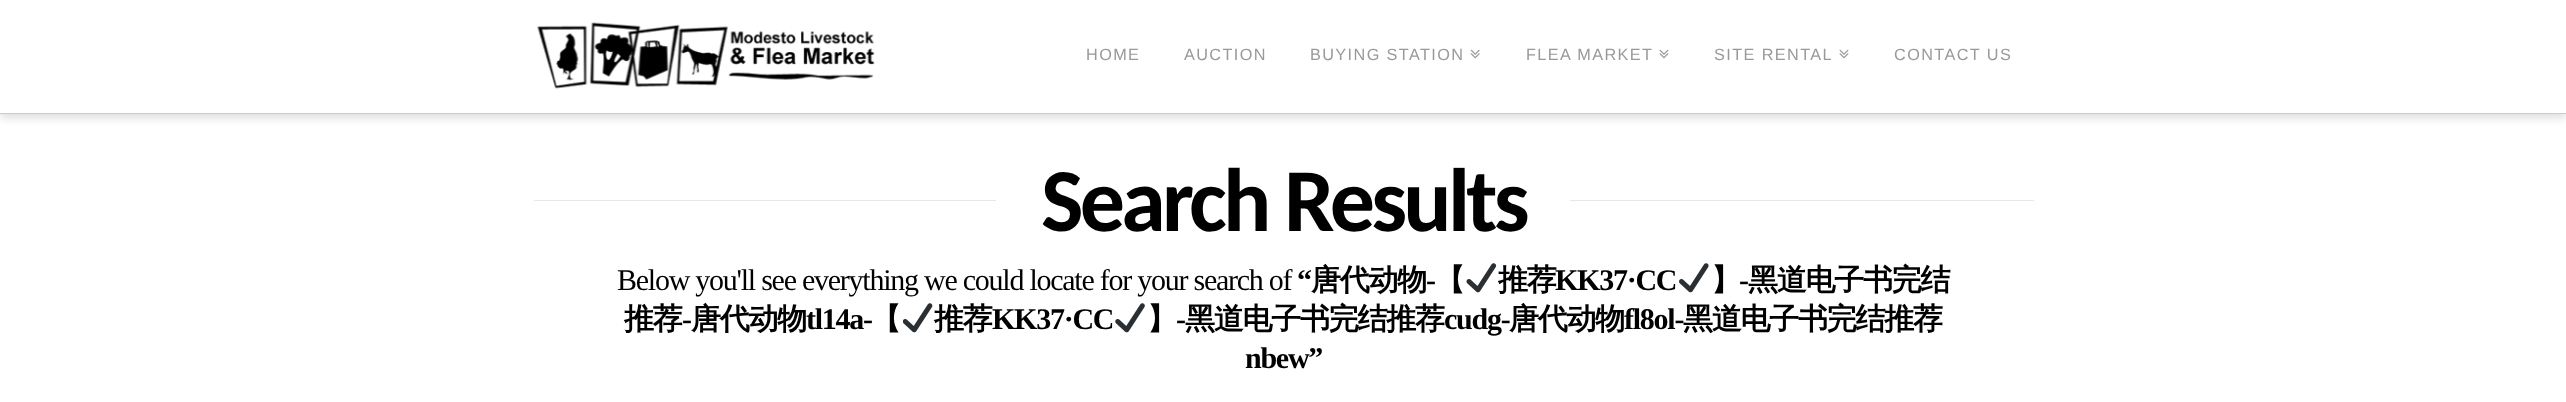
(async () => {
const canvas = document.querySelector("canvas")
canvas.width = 2566
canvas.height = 402
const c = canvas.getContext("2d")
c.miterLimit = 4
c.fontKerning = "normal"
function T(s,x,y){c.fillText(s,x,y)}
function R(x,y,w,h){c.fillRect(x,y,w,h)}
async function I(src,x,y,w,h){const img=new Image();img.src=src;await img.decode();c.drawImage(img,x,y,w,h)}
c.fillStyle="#fff"
R(0,0,2566,402)
c.fillStyle="#00000021"
c.filter="blur(4px)"
c.beginPath()
c.rect(0,4,2566,114)
c.fill()
c.filter="none"
c.fillStyle="#fff"
R(0,0,2566,113)
c.fillStyle="#ccc"
R(0,113,2566,1)
await I("1.png",537,22,338,67)
c.letterSpacing="1.4px"
c.font="16.25px Liberation Sans"
c.fillStyle="#999"
T("HOME",1086,60)
T("AUCTION",1184,60)
T("BUYING STATION",1310,60)
await I("2.png",1470,49,10,10)
T("FLEA MARKET",1526,60)
await I("3.png",1659,49,10,10)
T("SITE RENTAL",1714,60)
await I("3.png",1839,49,10,10)
T("CONTACT US",1894,60)
c.fillStyle="#e6e6e6"
R(534,200,462,1)
c.letterSpacing="-3.75px"
c.font="bold 90px Carlito"
c.fillStyle="#000"
T("Search Results",1041,231)
c.fillStyle="#e6e6e6"
R(1570,200,464,1)
c.letterSpacing="-1.25px"
c.font="30px Liberation Serif"
c.fillStyle="#000"
T("Below you'll see everything we could locate for your search of",617,290)
c.font="bold 30px Liberation Serif"
T("“",1297,290)
c.font="bold 30px WenQuanYi Zen Hei"
T("唐代动物",1311,290)
c.font="bold 30px Liberation Serif"
T("-",1426,290)
c.font="bold 30px WenQuanYi Zen Hei"
T("【",1435,290)
await I("4.png",1466,263,30,30)
T("推荐",1498,290)
c.font="bold 30px Liberation Serif"
T("KK37·CC",1555,290)
await I("5.png",1679,263,30,30)
c.font="bold 30px WenQuanYi Zen Hei"
T("】",1711,290)
c.font="bold 30px Liberation Serif"
T("-",1739,290)
c.font="bold 30px WenQuanYi Zen Hei"
T("黑道电子书完结",1748,290)
T("推荐",624,329)
c.font="bold 30px Liberation Serif"
T("-",682,329)
c.font="bold 30px WenQuanYi Zen Hei"
T("唐代动物",691,329)
c.font="bold 30px Liberation Serif"
T("tl14a-",806,329)
c.font="bold 30px WenQuanYi Zen Hei"
T("【",871,329)
await I("6.png",903,303,30,30)
T("推荐",934,329)
c.font="bold 30px Liberation Serif"
T("KK37·CC",992,329)
await I("7.png",1115,303,30,30)
c.font="bold 30px WenQuanYi Zen Hei"
T("】",1147,329)
c.font="bold 30px Liberation Serif"
T("-",1176,329)
c.font="bold 30px WenQuanYi Zen Hei"
T("黑道电子书完结推荐",1185,329)
c.font="bold 30px Liberation Serif"
T("cudg-",1444,329)
c.font="bold 30px WenQuanYi Zen Hei"
T("唐代动物",1509,329)
c.font="bold 30px Liberation Serif"
T("fl8ol-",1624,329)
c.font="bold 30px WenQuanYi Zen Hei"
T("黑道电子书完结推荐",1683,329)
c.font="bold 30px Liberation Serif"
T("nbew”",1245,368)
})()
